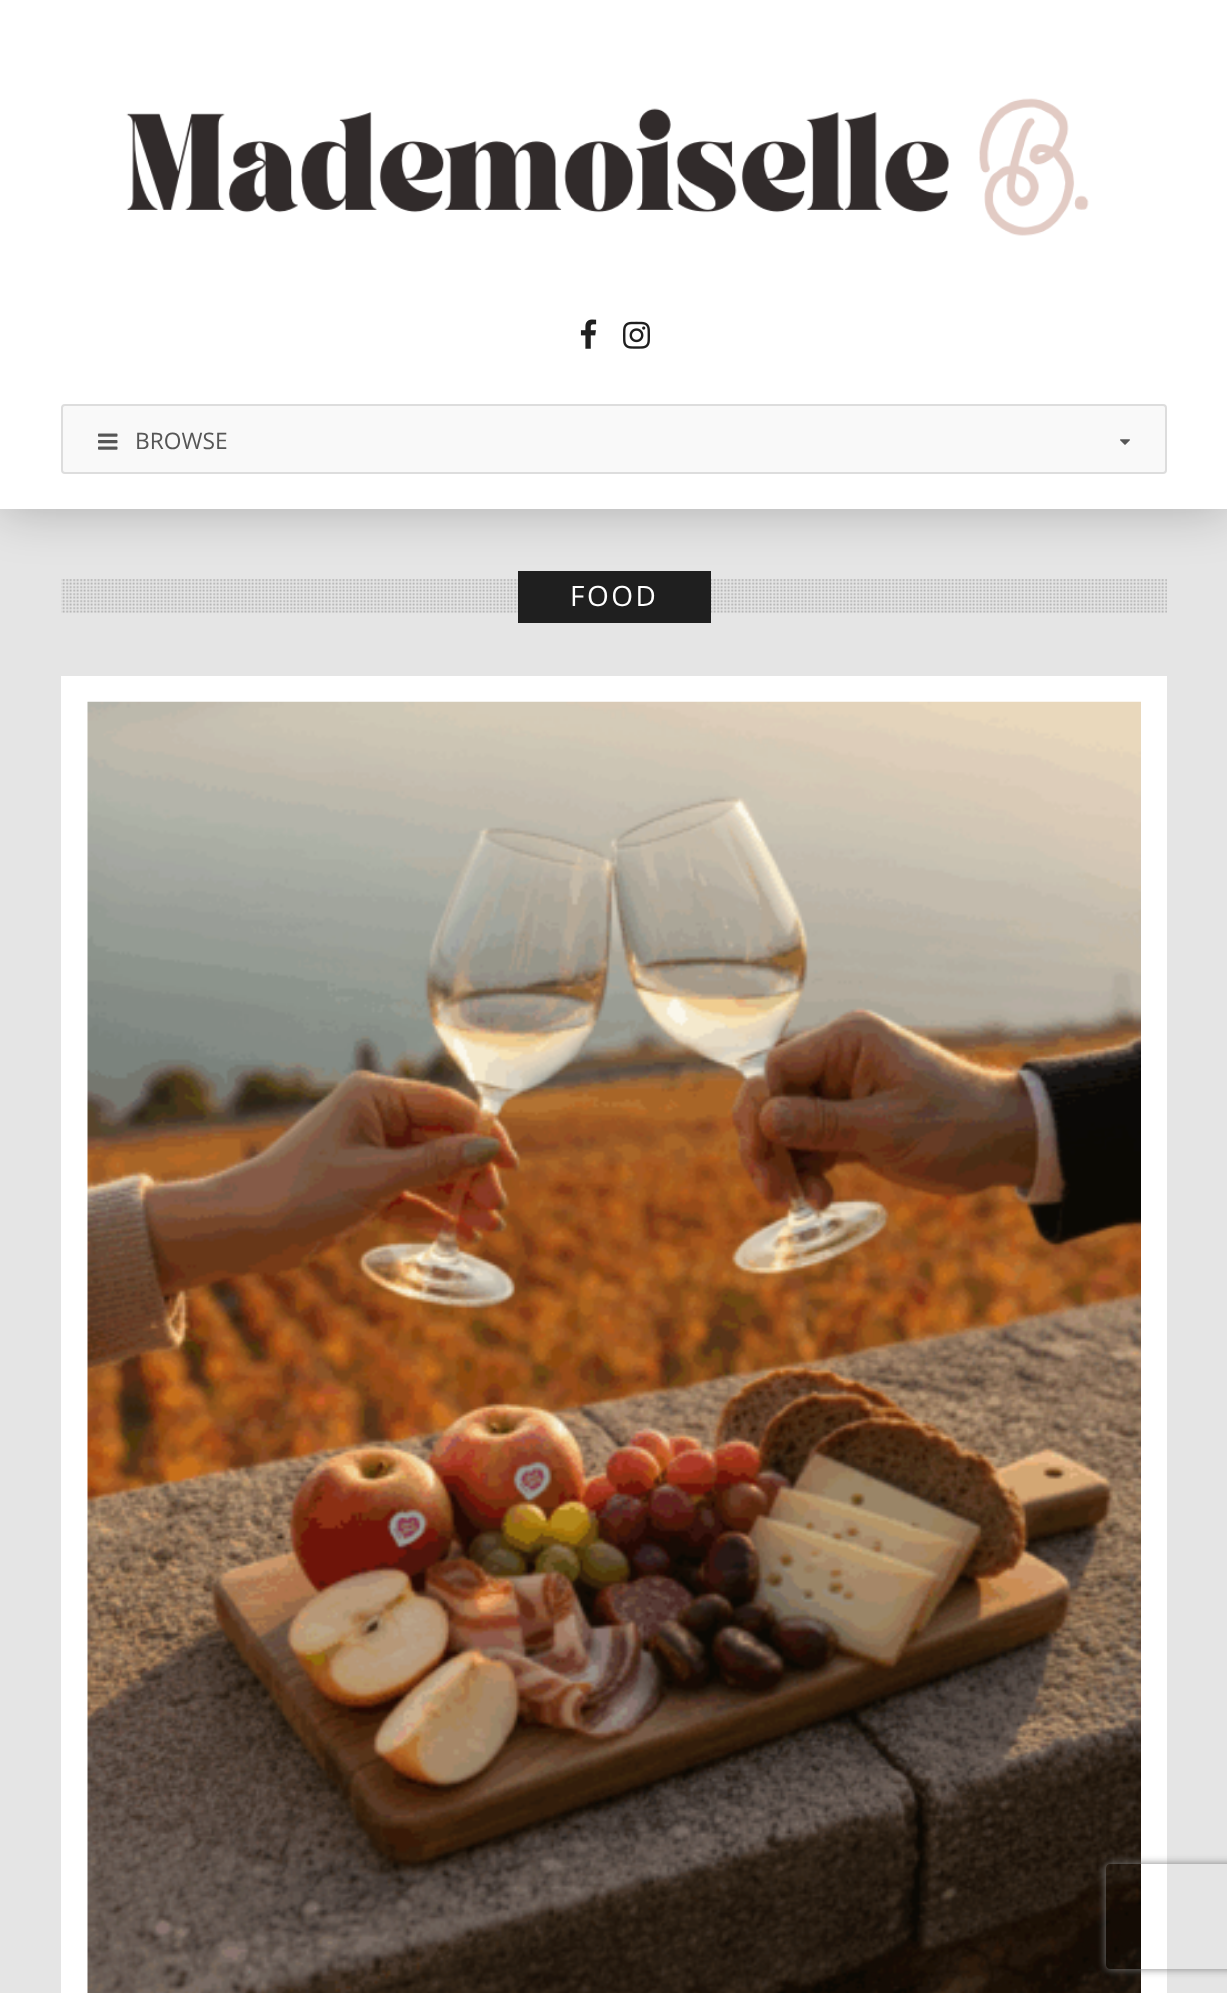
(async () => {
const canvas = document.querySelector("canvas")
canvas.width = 1227
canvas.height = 1993
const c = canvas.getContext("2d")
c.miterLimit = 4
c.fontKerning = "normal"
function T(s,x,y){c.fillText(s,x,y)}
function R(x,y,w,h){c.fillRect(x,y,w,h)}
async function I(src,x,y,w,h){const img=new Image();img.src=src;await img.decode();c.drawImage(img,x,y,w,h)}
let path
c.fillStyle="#e5e5e5"
R(0,0,1227,1993)
c.fillStyle="#00000040"
c.filter="blur(26px)"
c.beginPath()
c.rect(0,0,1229,509)
c.fill()
c.filter="none"
c.fillStyle="#fff"
R(0,0,1227,509)
await I("1.png",126,98,963,138)
await I("2.png",580,319,17,30)
await I("3.png",623,321,27,28)
c.fillStyle="#f9f9f9"
c.beginPath()
c.roundRect(62,405,1104,68,3)
c.fill()
c.strokeStyle="#ddd"
c.lineWidth=2
c.stroke()
await I("4.png",98,433,20,17)
c.font="22.75px Open Sans"
c.fillStyle="#565656"
T("BROWSE",135,449)
await I("5.png",1120,439,10,6)
await I("6.png",61,579,1106,34)
c.fillStyle="#1f1f1f"
R(518,571,193,52)
c.letterSpacing="2.5px"
c.font="28px Open Sans"
c.fillStyle="#fff"
T("FOOD",570,606)
R(61,676,1106,1317)
await I("7.png",87,701,1054,1292)
c.save()
path = new Path2D("M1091 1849h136v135h-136zm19 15h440c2 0 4 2 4 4v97c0 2-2 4-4 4h-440c-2 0-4-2-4-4v-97c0-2 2-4 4-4z")
c.clip(path,"evenodd")
c.fillStyle="#808080"
c.filter="blur(4.5px)"
c.beginPath()
c.roundRect(1106,1864,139,105,4)
c.fill()
c.filter="none"
c.restore()
})()
